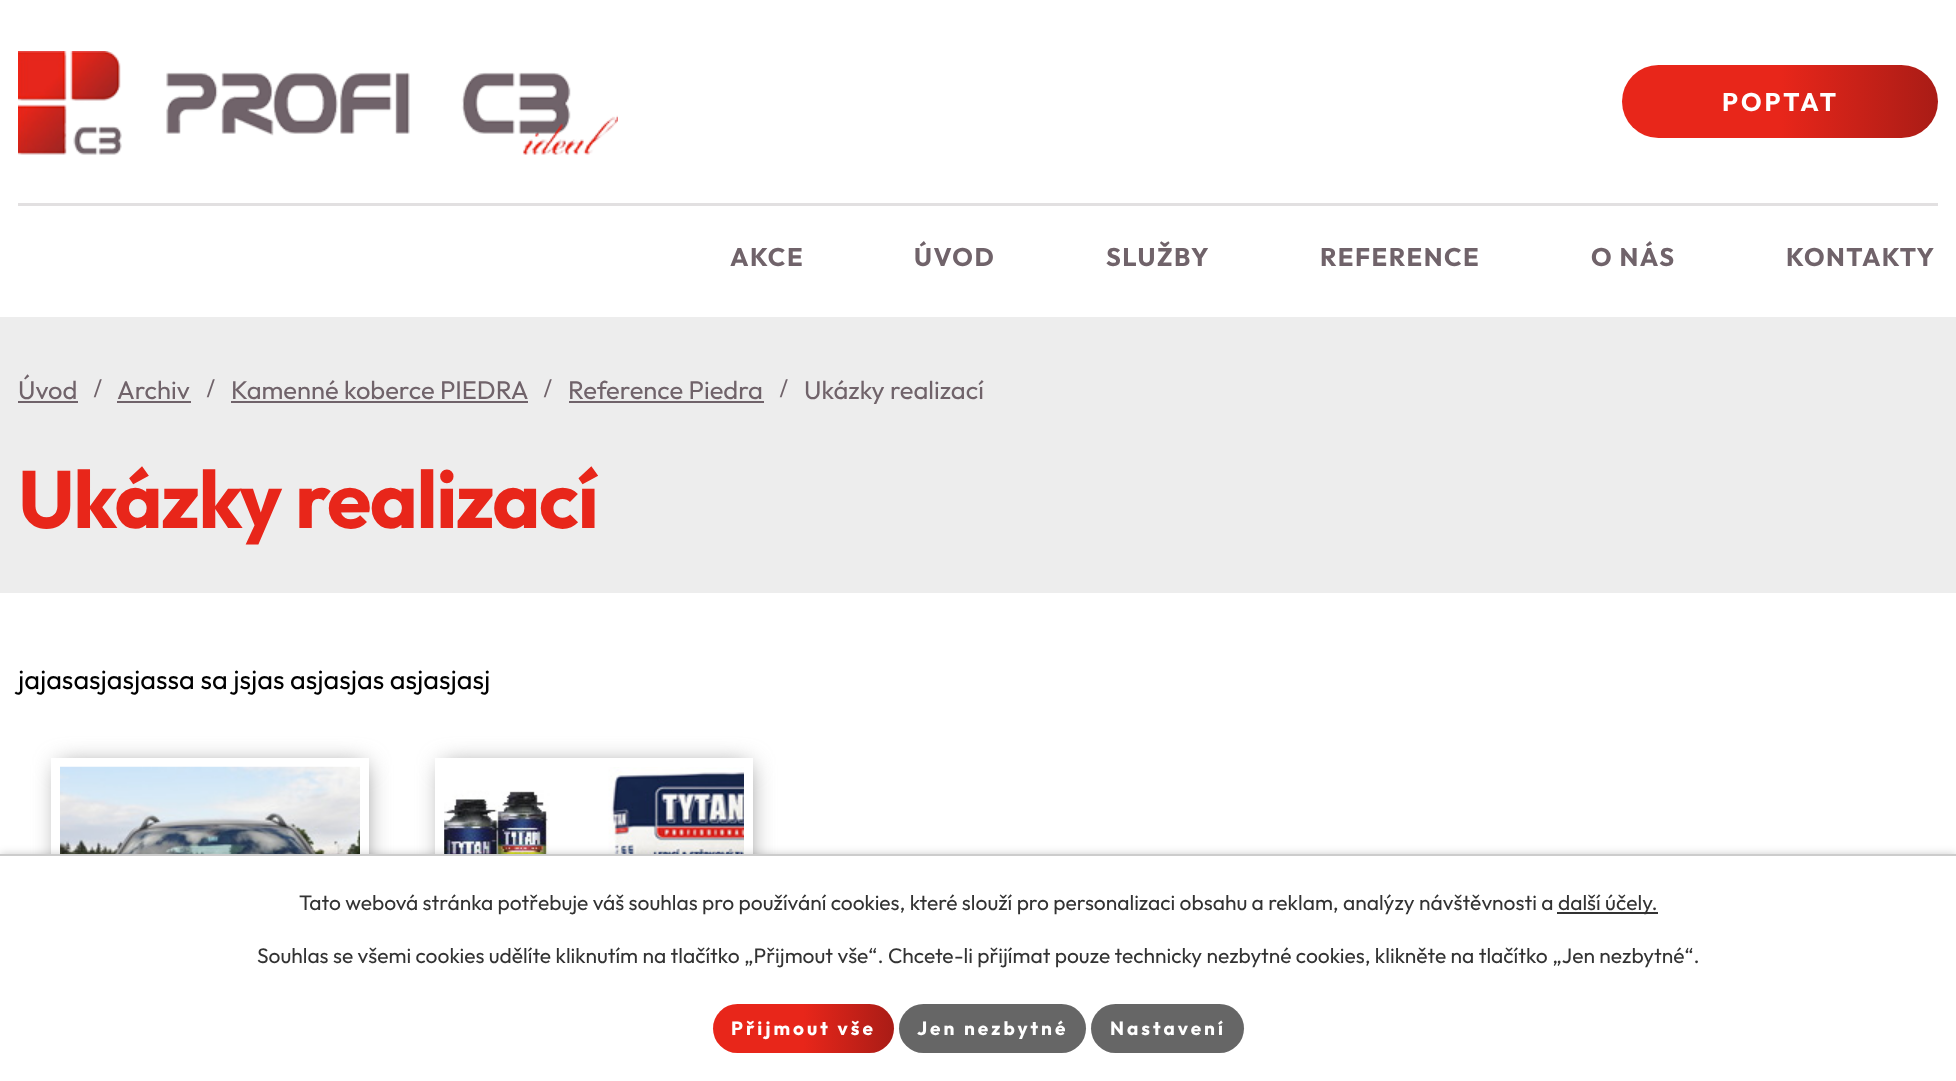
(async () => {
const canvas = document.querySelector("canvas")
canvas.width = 1956
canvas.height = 1081
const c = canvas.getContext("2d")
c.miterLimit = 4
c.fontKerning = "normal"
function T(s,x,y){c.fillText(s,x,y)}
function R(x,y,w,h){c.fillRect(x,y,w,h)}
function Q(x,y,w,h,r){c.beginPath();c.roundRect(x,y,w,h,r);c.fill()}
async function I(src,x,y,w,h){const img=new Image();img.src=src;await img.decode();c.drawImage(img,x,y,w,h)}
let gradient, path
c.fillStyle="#fff"
R(0,0,1956,1081)
await I("1.png",18,51,600,104)
gradient = c.createLinearGradient(1622,101,1938,101)
gradient.addColorStop(.5,"#e8261a")
gradient.addColorStop(1,"#a91c16")
c.fillStyle = gradient
Q(1622,65,316,73,36.5)
c.letterSpacing="3px"
c.font="bold 25.5px Outfit"
c.fillStyle="#fff"
T("POPTAT",1722,111)
c.fillStyle="#e2e0e1"
R(18,203,1920,3)
c.letterSpacing="1.5px"
c.fillStyle="#70636a"
T("AKCE",730,266)
T("ÚVOD",914,266)
T("SLUŽBY",1106,266)
T("REFERENCE",1320,266)
T("O NÁS",1591,266)
T("KONTAKTY",1786,266)
c.fillStyle="#ededed"
R(0,317,1956,276)
c.letterSpacing="0px"
c.font="25.5px Outfit"
c.fillStyle="#70636a"
T("Úvod",18,399)
R(18,401,60,2)
c.font="bold 27px Liberation Serif"
T("/",94,397)
c.font="25.5px Outfit"
T("Archiv",117,399)
R(117,401,74,2)
c.font="bold 27px Liberation Serif"
T("/",207,397)
c.font="25.5px Outfit"
T("Kamenné koberce PIEDRA",231,399)
R(231,401,297,2)
c.font="bold 27px Liberation Serif"
T("/",544,397)
c.font="25.5px Outfit"
T("Reference Piedra",568,399)
R(569,401,195,2)
c.font="bold 27px Liberation Serif"
T("/",780,397)
c.font="25.5px Outfit"
T("Ukázky realizací",804,399)
c.letterSpacing="-1.5px"
c.font="bold 81px Outfit"
c.fillStyle="#e8261a"
T("Ukázky realizací",18,528)
c.letterSpacing="0px"
c.font="27px Outfit"
c.fillStyle="#000"
T("jajasasjasjassa sa jsjas asjasjas asjasjasj",18,689)
c.save()
path = new Path2D("M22 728h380v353h-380zm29 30h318v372h-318z")
c.clip(path,"evenodd")
c.fillStyle="#888"
c.filter="blur(12px)"
c.beginPath()
c.rect(59,765,306,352)
c.fill()
c.filter="none"
c.restore()
await I("2.png",60,766,300,88)
c.save()
path = new Path2D("M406 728h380v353h-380zm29 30h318v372h-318z")
c.clip(path,"evenodd")
c.fillStyle="#888"
c.filter="blur(12px)"
c.beginPath()
c.rect(443,765,306,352)
c.fill()
c.filter="none"
c.restore()
await I("3.png",444,767,300,87)
c.fillStyle="#00000033"
c.filter="blur(4px)"
c.beginPath()
c.rect(0,854,1956,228)
c.fill()
c.filter="none"
c.fillStyle="#fff"
R(0,856,1956,225)
c.fillStyle="#ccc"
R(0,854,1956,2)
c.font="21px Outfit"
c.fillStyle="#333"
T("Tato webová stránka potřebuje váš souhlas pro používání cookies, které slouží pro personalizaci obsahu a reklam, analýzy návštěvnosti a",299,910)
R(1557,912,101,2)
T("další účely.",1558,910)
T("Souhlas se všemi cookies udělíte kliknutím na tlačítko „Přijmout vše“. Chcete-li přijímat pouze technicky nezbytné cookies, klikněte na tlačítko „Jen nezbytné“.",257,963)
gradient = c.createLinearGradient(713,1028,894,1028)
gradient.addColorStop(.5,"#e8261a")
gradient.addColorStop(1,"#a91c16")
c.fillStyle = gradient
Q(713,1004,181,49,24.5)
c.letterSpacing="3px"
c.font="bold 19px Outfit"
c.fillStyle="#fff"
T("Přijmout vše",731,1035)
c.fillStyle="#666"
Q(899,1004,187,49,24.5)
c.fillStyle="#fff"
T("Jen nezbytné",917,1035)
c.fillStyle="#666"
Q(1091,1004,153,49,24.5)
c.fillStyle="#fff"
T("Nastavení",1110,1035)
})()
